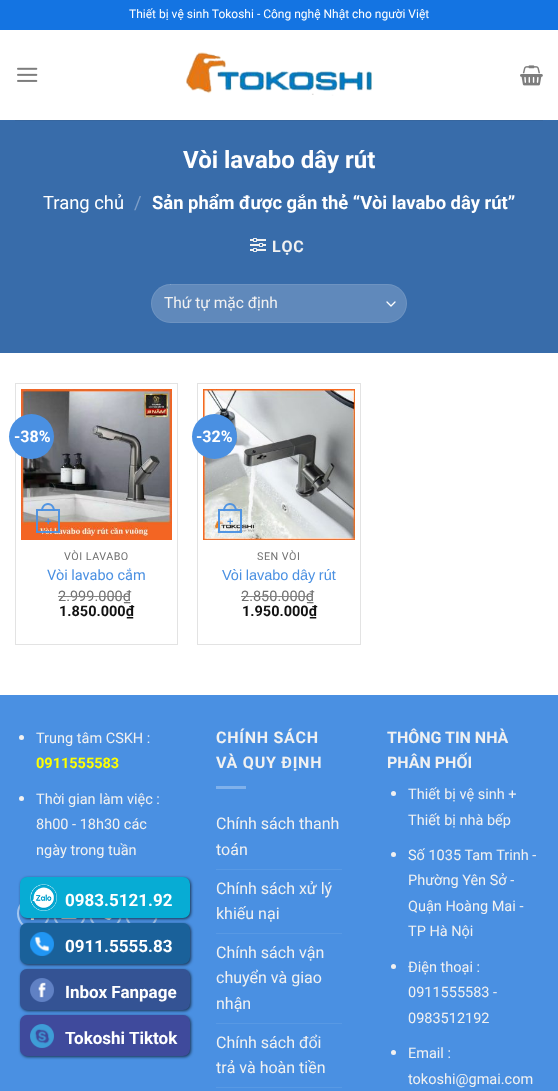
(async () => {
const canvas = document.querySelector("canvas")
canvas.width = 558
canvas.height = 1091
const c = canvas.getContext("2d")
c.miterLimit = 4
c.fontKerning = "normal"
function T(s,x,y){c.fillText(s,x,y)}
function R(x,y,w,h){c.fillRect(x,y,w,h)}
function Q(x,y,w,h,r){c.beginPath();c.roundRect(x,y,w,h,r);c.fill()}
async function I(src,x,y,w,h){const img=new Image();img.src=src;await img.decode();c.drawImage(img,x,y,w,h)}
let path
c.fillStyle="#fff"
R(0,0,558,1091)
c.fillStyle="#1474e2"
R(0,0,558,30)
c.font="12px Roboto"
c.fillStyle="#fff"
T("Thiết bị vệ sinh Tokoshi - Công nghệ Nhật cho người Việt",129,18)
await I("1.png",17,67,21,15)
await I("2.png",186,52,186,44)
await I("3.png",520,65,23,21)
c.fillStyle="#386caa"
R(0,120,558,233)
c.fillStyle="#37669e"
R(15,120,528,1)
c.font="bold 24px Roboto"
c.fillStyle="#fff"
T("Vòi lavabo dây rút",183,168)
c.font="18.4px Roboto"
T("Trang chủ",43,209)
c.fillStyle="#7e9fc8"
T("/",134,209)
c.font="bold 18.4px Roboto"
c.fillStyle="#fff"
T("Sản phẩm được gắn thẻ “Vòi lavabo dây rút”",152,209)
await I("4.png",250,238,16,14)
c.letterSpacing="0.75px"
c.font="bold 16px Roboto"
c.fillStyle="#f1f1f1"
T("LỌC",272,252)
c.fillStyle="#6089bb"
Q(151,284,256,39,19.5)
path = new Path2D("M387 302l4 4l4-4")
c.strokeStyle="#fff"
c.lineWidth=1.3
c.lineCap="round"
c.lineJoin="round"
c.stroke(path)
c.beginPath()
c.roundRect(151.5,284.5,255,38,19)
c.strokeStyle="#ffffff17"
c.lineWidth=1
c.lineJoin="miter"
c.stroke()
c.letterSpacing="0px"
c.font="15.5px Roboto"
c.fillStyle="#f1f1f1"
T("Thứ tự mặc định",164,308)
c.strokeStyle="#e3e3e3"
c.strokeRect(15.5,383.5,162,261)
await I("5.png",21,389,151,151)
c.fillStyle="#4a90e2"
c.beginPath()
c.arc(31.5,436.5,22.5,0,7)
c.fill()
c.font="bold 16px Roboto"
c.fillStyle="#fff"
T("-38%",14,442)
c.strokeStyle="#4a90e2f2"
c.lineWidth=2
c.strokeRect(37,510,22,22)
c.fillStyle="#4a90e2f2"
path = new Path2D("M48 503c4.5 0 7 4 7 8h-14c0-4 2.5-8 7-8zm0 2c3.5 0 5 3 5 6h-10c0-3 1.5-6 5-6z")
c.fill(path,"evenodd")
c.font="bold 11px Liberation Sans"
c.fillStyle="#4f90dc"
T("+",45,525)
c.letterSpacing="0.5px"
c.font="10.75px Roboto"
c.fillStyle="#707070"
T("VÒI LAVABO",64,560)
c.letterSpacing="0px"
c.font="14.5px Roboto"
c.fillStyle="#4a90e2"
T("Vòi lavabo cắm",47,580)
c.fillStyle="#707070"
T("2.999.000₫",58,601)
c.fillStyle="#858585"
R(58,596,72,1)
c.font="bold 14.5px Roboto"
c.fillStyle="#111"
T("1.850.000₫",59,616)
c.strokeStyle="#e3e3e3"
c.lineWidth=1
c.strokeRect(197.5,383.5,163,261)
await I("6.png",203,389,152,151)
c.fillStyle="#4a90e2"
c.beginPath()
c.arc(214.5,436.5,22.5,0,7)
c.fill()
c.font="bold 16px Roboto"
c.fillStyle="#fff"
T("-32%",196,442)
c.strokeStyle="#4a90e2f2"
c.lineWidth=2
c.strokeRect(219,510,22,22)
c.fillStyle="#4a90e2f2"
path = new Path2D("M230 503c4.5 0 7 4 7 8h-14c0-4 2.5-8 7-8zm0 2c3.5 0 5 3 5 6h-10c0-3 1.5-6 5-6z")
c.fill(path,"evenodd")
c.font="bold 11px Liberation Sans"
c.fillStyle="#5295e2"
T("+",227,525)
c.letterSpacing="0.5px"
c.font="10.75px Roboto"
c.fillStyle="#707070"
T("SEN VÒI",257,560)
c.letterSpacing="0px"
c.wordSpacing="-0.5px"
c.font="14.5px Liberation Sans"
c.fillStyle="#4a90e2"
T("Vòi lavabo dây rút",222,580)
c.wordSpacing="0px"
c.font="14.5px Roboto"
c.fillStyle="#707070"
T("2.850.000₫",241,601)
c.fillStyle="#858585"
R(241,596,72,1)
c.font="bold 14.5px Roboto"
c.fillStyle="#111"
T("1.950.000₫",242,616)
c.fillStyle="#4a90e2"
R(0,695,558,396)
c.fillStyle="#f1f1f1"
c.beginPath()
c.arc(21.5,737.5,2.5,0,7)
c.fill()
c.font="14.5px Roboto"
T("Trung tâm CSKH :",36,743)
c.font="bold 14.5px Roboto"
c.fillStyle="#ff0"
T("0911555583",36,768)
c.fillStyle="#f1f1f1"
c.beginPath()
c.arc(21.5,798.5,2.5,0,7)
c.fill()
c.font="14.5px Roboto"
T("Thời gian làm việc :",36,804)
T("8h00 - 18h30 các",36,829)
T("ngày trong tuần",36,855)
c.beginPath()
c.arc(33.5,913.5,15.5,0,7)
c.strokeStyle="#a5c8f1"
c.stroke()
await I("11.png",30,918,4,2)
c.beginPath()
c.arc(69.5,913.5,15.5,0,7)
c.stroke()
await I("12.png",61,918,16,1)
c.beginPath()
c.arc(105.5,913.5,15.5,0,7)
c.stroke()
await I("13.png",104,918,8,2)
c.beginPath()
c.arc(141.5,913.5,15.5,0,7)
c.stroke()
c.fillStyle="#000000a8"
c.filter="blur(1.5px)"
c.beginPath()
c.roundRect(21,878,170,41,7)
c.fill()
c.filter="none"
c.fillStyle="#07acd4"
Q(20,877,170,41,7)
await I("7.png",30,884,27,27)
c.font="bold 17px Roboto"
c.fillStyle="#fff"
T("0983.5121.92",65,906)
c.fillStyle="#000000a8"
c.filter="blur(1.5px)"
c.beginPath()
c.roundRect(21,924,170,41,7)
c.fill()
c.filter="none"
c.fillStyle="#1a619a"
Q(20,923,170,41,7)
await I("8.png",30,932,24,24)
c.fillStyle="#fff"
T("0911.5555.83",65,952)
c.fillStyle="#000000a8"
c.filter="blur(1.5px)"
c.beginPath()
c.roundRect(21,970,170,41,7)
c.fill()
c.filter="none"
c.fillStyle="#345394"
Q(20,969,170,41,7)
await I("9.png",30,978,24,24)
c.fillStyle="#fff"
T("Inbox Fanpage",65,998)
c.fillStyle="#000000a8"
c.filter="blur(1.5px)"
c.beginPath()
c.roundRect(21,1016,170,41,7)
c.fill()
c.filter="none"
c.fillStyle="#3f4a9c"
Q(20,1015,170,41,7)
await I("10.png",30,1024,24,24)
c.fillStyle="#fff"
T("Tokoshi Tiktok",65,1044)
c.letterSpacing="0.75px"
c.font="bold 16px Roboto"
c.fillStyle="#f1f1f1"
T("CHÍNH SÁCH",216,743)
T("VÀ QUY ĐỊNH",216,768)
c.fillStyle="#80b1eb"
R(216,786,30,3)
c.letterSpacing="0px"
c.font="16px Roboto"
c.fillStyle="#f1f1f1"
T("Chính sách thanh",216,829)
T("toán",216,855)
c.fillStyle="#5899e4"
R(216,869,126,1)
c.fillStyle="#f1f1f1"
T("Chính sách xử lý",216,894)
T("khiếu nại",216,919)
c.fillStyle="#5899e4"
R(216,933,126,1)
c.fillStyle="#f1f1f1"
T("Chính sách vận",216,958)
T("chuyển và giao",216,983)
T("nhận",216,1009)
c.fillStyle="#5899e4"
R(216,1023,126,1)
c.fillStyle="#f1f1f1"
T("Chính sách đổi",216,1048)
T("trả và hoàn tiền",216,1073)
c.fillStyle="#5899e4"
R(216,1087,126,1)
c.font="bold 16px Roboto"
c.fillStyle="#f1f1f1"
T("THÔNG TIN NHÀ",387,743)
T("PHÂN PHỐI",387,768)
c.beginPath()
c.arc(393.5,793.5,2.5,0,7)
c.fill()
c.font="14.5px Roboto"
T("Thiết bị vệ sinh +",408,799)
T("Thiết bị nhà bếp",408,825)
c.beginPath()
c.arc(393.5,854.5,2.5,0,7)
c.fill()
T("Số 1035 Tam Trinh -",408,860)
T("Phường Yên Sở -",408,885)
T("Quận Hoàng Mai -",408,911)
T("TP Hà Nội",408,936)
c.beginPath()
c.arc(393.5,966.5,2.5,0,7)
c.fill()
T("Điện thoại :",408,972)
T("0911555583 -",408,997)
T("0983512192",408,1023)
c.beginPath()
c.arc(393.5,1052.5,2.5,0,7)
c.fill()
T("Email :",408,1058)
T("tokoshi@gmai.com",408,1084)
})()
